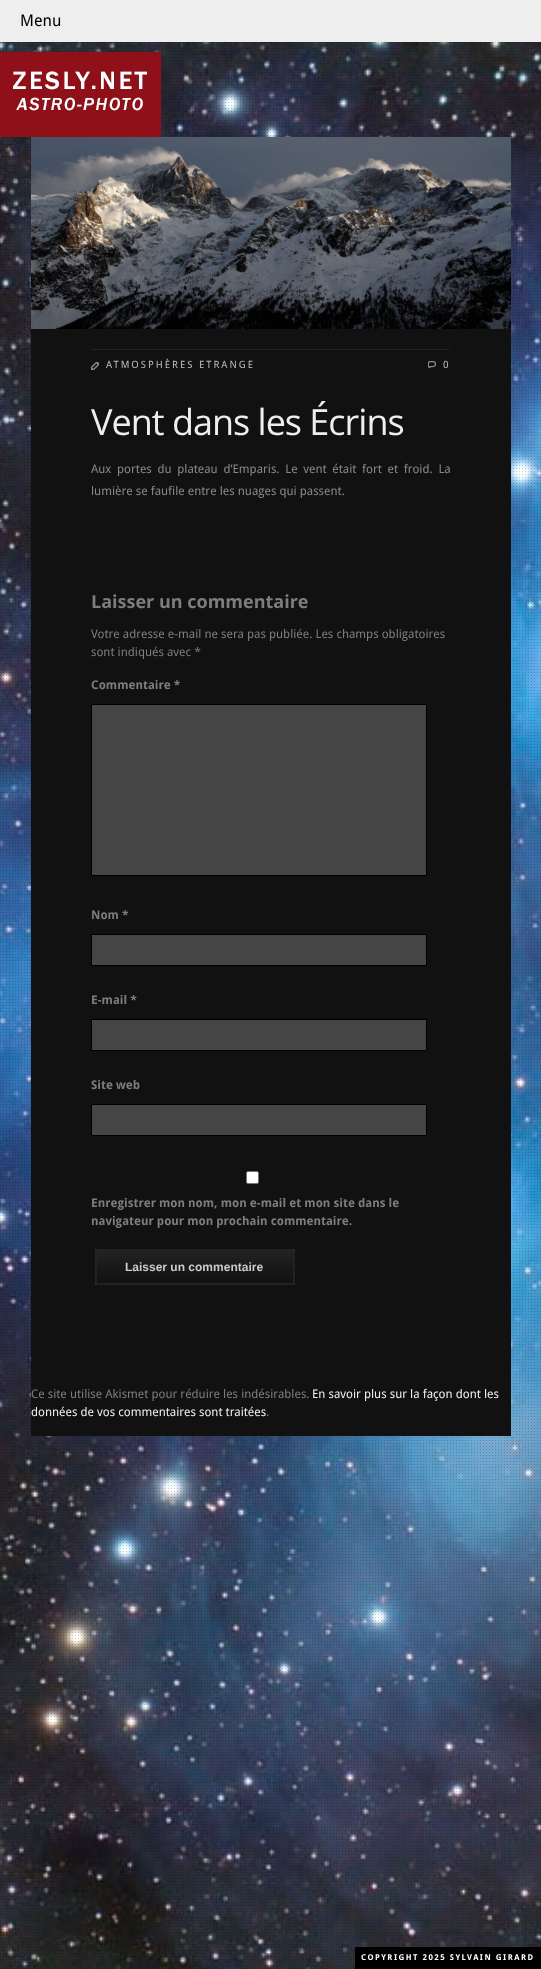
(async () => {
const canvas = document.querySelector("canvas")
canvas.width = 541
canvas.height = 1969
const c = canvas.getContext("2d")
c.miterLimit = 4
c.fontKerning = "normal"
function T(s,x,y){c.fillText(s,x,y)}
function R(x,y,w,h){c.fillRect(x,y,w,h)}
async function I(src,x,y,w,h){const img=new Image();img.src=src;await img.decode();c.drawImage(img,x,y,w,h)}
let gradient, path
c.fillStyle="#fff"
R(0,0,541,1969)
c.fillStyle="#eee"
R(0,0,541,42)
c.font="16px Droid Sans"
c.fillStyle="#000"
T("Menu",20,26)
await I("1.png",0,42,541,1927)
await I("2.png",0,42,541,1927)
await I("3.png",0,52,161,85)
c.fillStyle="#111"
R(31,329,480,1107)
await I("4.png",31,137,480,192)
path = new Path2D("M91 349.5h360")
c.strokeStyle="#333"
c.setLineDash([1,1])
c.stroke(path)
await I("5.png",91,362,8,8)
c.letterSpacing="2px"
c.font="10px Droid Sans"
c.fillStyle="#bbb"
T("ATMOSPHÈRES ETRANGE",106,368)
await I("6.png",428,361,8,7)
T("0",443,368)
c.letterSpacing="-1px"
c.font="36px Open Sans"
c.fillStyle="#eee"
T("Vent dans les Écrins",91,435)
c.letterSpacing="0px"
c.wordSpacing="2.6px"
c.font="12px Droid Sans"
c.fillStyle="#888"
T("Aux portes du plateau d’Emparis. Le vent était fort et froid. La",91,473)
c.wordSpacing="0px"
T("lumière se faufile entre les nuages qui passent.",91,495)
c.font="bold 18px Open Sans"
c.fillStyle="#7d7d7d"
T("Laisser un commentaire",91,608)
c.font="12px Droid Sans"
T("Votre adresse e-mail ne sera pas publiée. Les champs obligatoires",91,638)
T("sont indiqués avec *",91,656)
c.font="bold 12px Droid Sans"
T("Commentaire *",91,689)
c.fillStyle="#454545"
c.beginPath()
c.rect(91.5,704.5,335,171)
c.fill()
c.strokeStyle="#000"
c.setLineDash([])
c.stroke()
c.fillStyle="#7d7d7d"
T("Nom *",91,919)
c.fillStyle="#454545"
c.beginPath()
c.rect(91.5,934.5,335,31)
c.fill()
c.stroke()
c.fillStyle="#7d7d7d"
T("E-mail *",91,1004)
c.fillStyle="#454545"
c.beginPath()
c.rect(91.5,1019.5,335,31)
c.fill()
c.stroke()
c.fillStyle="#7d7d7d"
T("Site web",91,1089)
c.fillStyle="#454545"
c.beginPath()
c.rect(91.5,1104.5,335,31)
c.fill()
c.stroke()
c.fillStyle="#fff"
c.beginPath()
c.roundRect(246.5,1171.5,12,12,1.5)
c.fill()
c.strokeStyle="#767676"
c.stroke()
c.fillStyle="#7d7d7d"
T("Enregistrer mon nom, mon e-mail et mon site dans le",91,1207)
T("navigateur pour mon prochain commentaire.",91,1225)
c.fillStyle="#dedede80"
c.filter="blur(0.5px)"
c.beginPath()
c.roundRect(95,1249,200,36,2)
c.fill()
c.filter="none"
gradient = c.createLinearGradient(97,1251,97,1283)
gradient.addColorStop(0,"#222")
gradient.addColorStop(1,"#111")
c.fillStyle = gradient
R(97,1251,196,32)
c.beginPath()
c.roundRect(96,1250,198,34,1)
c.strokeStyle="#222"
c.lineWidth=2
c.stroke()
c.font="bold 12px Liberation Sans"
c.fillStyle="#ccc"
T("Laisser un commentaire",125,1271)
c.font="12px Droid Sans"
c.fillStyle="#7d7d7d"
T("Ce site utilise Akismet pour réduire les indésirables.",31,1398)
c.fillStyle="#eee"
T("En savoir plus sur la façon dont les",312,1398)
T("données de vos commentaires sont traitées",31,1416)
c.fillStyle="#7d7d7d"
T(".",266,1416)
c.fillStyle="#000"
R(355,1947,186,22)
c.letterSpacing="1.5px"
c.font="bold 8px Droid Sans"
c.fillStyle="#fff"
T("COPYRIGHT 2025 SYLVAIN GIRARD",361,1960)
})()
